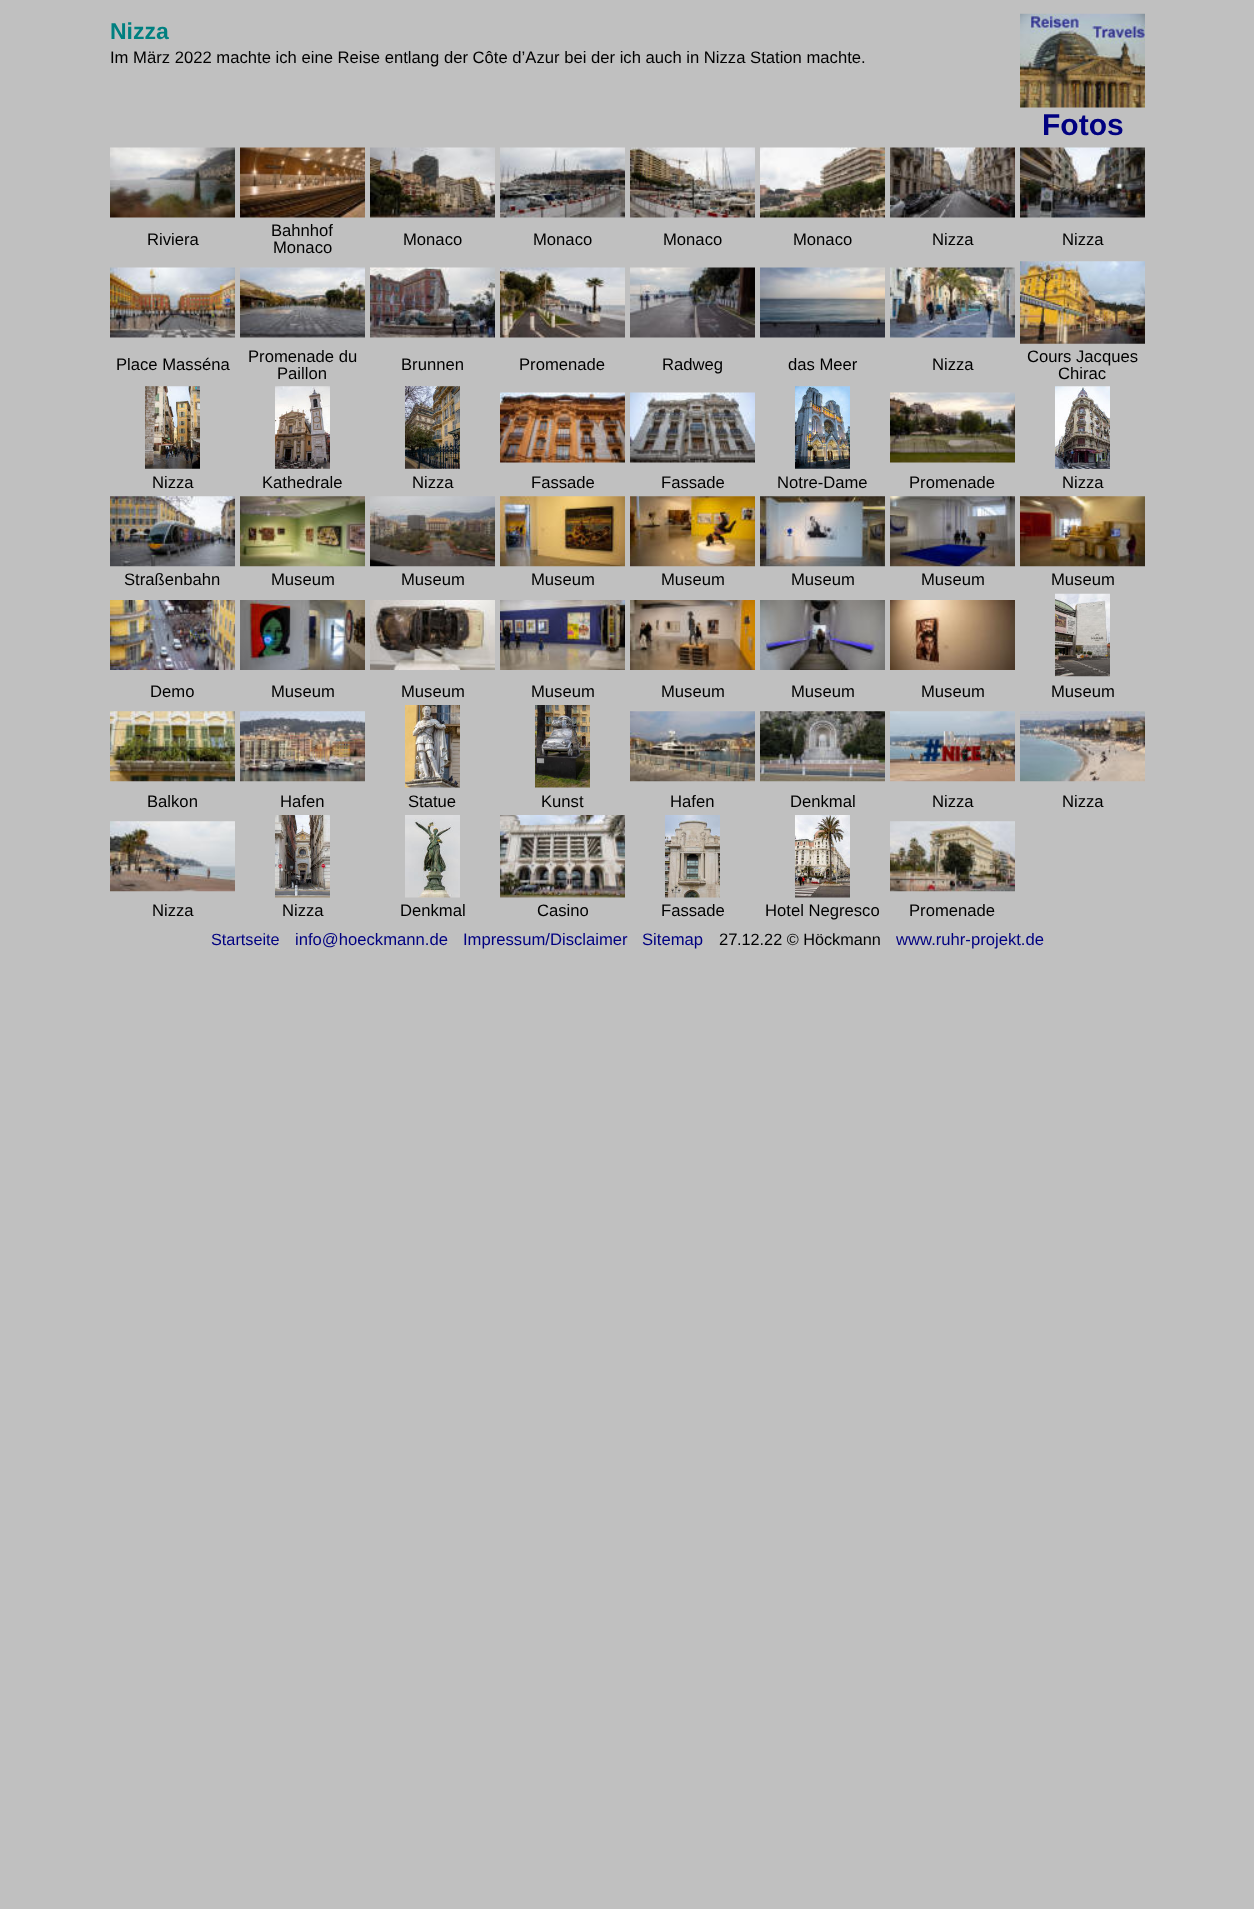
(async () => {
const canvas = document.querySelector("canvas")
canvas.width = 1254
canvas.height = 1909
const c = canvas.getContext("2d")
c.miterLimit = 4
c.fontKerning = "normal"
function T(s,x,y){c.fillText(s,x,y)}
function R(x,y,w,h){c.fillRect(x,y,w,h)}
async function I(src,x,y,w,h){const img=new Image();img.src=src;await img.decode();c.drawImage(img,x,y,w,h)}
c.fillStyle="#c0c0c0"
R(0,0,1254,1909)
c.font="bold 23px Liberation Sans"
c.fillStyle="#008080"
T("Nizza",110,39)
c.font="16.65px Liberation Sans"
c.fillStyle="#000"
T("Im März 2022 machte ich eine Reise entlang der Côte d’Azur bei der ich auch in Nizza Station machte.",110,63)
await I("1.png",1020,13,125,95)
c.font="bold 30px Liberation Sans"
c.fillStyle="#000080"
T("Fotos",1042,135)
await I("2.png",110,147,125,71)
await I("3.png",240,147,125,71)
await I("4.png",370,147,125,71)
await I("5.png",500,147,125,71)
await I("6.png",630,147,125,71)
await I("7.png",760,147,125,71)
await I("8.png",890,147,125,71)
await I("9.png",1020,147,125,71)
c.font="16.65px Liberation Sans"
c.fillStyle="#000"
T("Riviera",147,245)
T("Bahnhof",271,236)
T("Monaco",273,253)
T("Monaco",403,245)
T("Monaco",533,245)
T("Monaco",663,245)
T("Monaco",793,245)
T("Nizza",932,245)
T("Nizza",1062,245)
await I("10.png",110,267,125,71)
await I("11.png",240,267,125,71)
await I("12.png",370,267,125,71)
await I("13.png",500,267,125,71)
await I("14.png",630,267,125,71)
await I("15.png",760,267,125,71)
await I("16.png",890,267,125,71)
await I("17.png",1020,261,125,83)
T("Place Masséna",116,370)
T("Promenade du",248,362)
T("Paillon",277,379)
T("Brunnen",401,370)
T("Promenade",519,370)
T("Radweg",662,370)
T("das Meer",788,370)
T("Nizza",932,370)
T("Cours Jacques",1027,362)
T("Chirac",1058,379)
await I("18.png",145,386,55,83)
await I("19.png",275,386,55,83)
await I("20.png",405,386,55,83)
await I("21.png",500,392,125,71)
await I("22.png",630,392,125,71)
await I("23.png",795,386,55,83)
await I("24.png",890,392,125,71)
await I("25.png",1055,386,55,83)
T("Nizza",152,488)
T("Kathedrale",262,488)
T("Nizza",412,488)
T("Fassade",531,488)
T("Fassade",661,488)
T("Notre-Dame",777,488)
T("Promenade",909,488)
T("Nizza",1062,488)
await I("26.png",110,496,125,71)
await I("27.png",240,496,125,71)
await I("28.png",370,496,125,71)
await I("29.png",500,496,125,71)
await I("30.png",630,496,125,71)
await I("31.png",760,496,125,71)
await I("32.png",890,496,125,71)
await I("33.png",1020,496,125,71)
T("Straßenbahn",124,585)
T("Museum",271,585)
T("Museum",401,585)
T("Museum",531,585)
T("Museum",661,585)
T("Museum",791,585)
T("Museum",921,585)
T("Museum",1051,585)
await I("34.png",110,600,125,70)
await I("35.png",240,600,125,70)
await I("36.png",370,600,125,70)
await I("37.png",500,600,125,70)
await I("38.png",630,600,125,70)
await I("39.png",760,600,125,70)
await I("40.png",890,600,125,70)
await I("41.png",1055,593,55,84)
T("Demo",150,697)
T("Museum",271,697)
T("Museum",401,697)
T("Museum",531,697)
T("Museum",661,697)
T("Museum",791,697)
T("Museum",921,697)
T("Museum",1051,697)
await I("42.png",110,711,125,71)
await I("43.png",240,711,125,71)
await I("44.png",405,705,55,83)
await I("45.png",535,705,55,83)
await I("46.png",630,711,125,71)
await I("47.png",760,711,125,71)
await I("48.png",890,711,125,71)
await I("49.png",1020,711,125,71)
T("Balkon",147,807)
T("Hafen",280,807)
T("Statue",408,807)
T("Kunst",541,807)
T("Hafen",670,807)
T("Denkmal",790,807)
T("Nizza",932,807)
T("Nizza",1062,807)
await I("50.png",110,821,125,71)
await I("51.png",275,815,55,83)
await I("52.png",405,815,55,83)
await I("53.png",500,815,125,83)
await I("54.png",665,815,55,83)
await I("55.png",795,815,55,83)
await I("56.png",890,821,125,71)
T("Nizza",152,916)
T("Nizza",282,916)
T("Denkmal",400,916)
T("Casino",537,916)
T("Fassade",661,916)
T("Hotel Negresco",765,916)
T("Promenade",909,916)
c.font="16.25px Liberation Sans"
c.fillStyle="#000080"
T("Startseite",211,945)
c.font="16.65px Liberation Sans"
T("info@hoeckmann.de",295,945)
T("Impressum/Disclaimer",463,945)
T("Sitemap",642,945)
c.fillStyle="#000"
T("27",719,945)
c.font="16.25px Liberation Sans"
T(".12.22 © Höckmann",737,945)
c.font="16.65px Liberation Sans"
c.fillStyle="#000080"
T("www.ruhr-projekt.de",896,945)
})()
